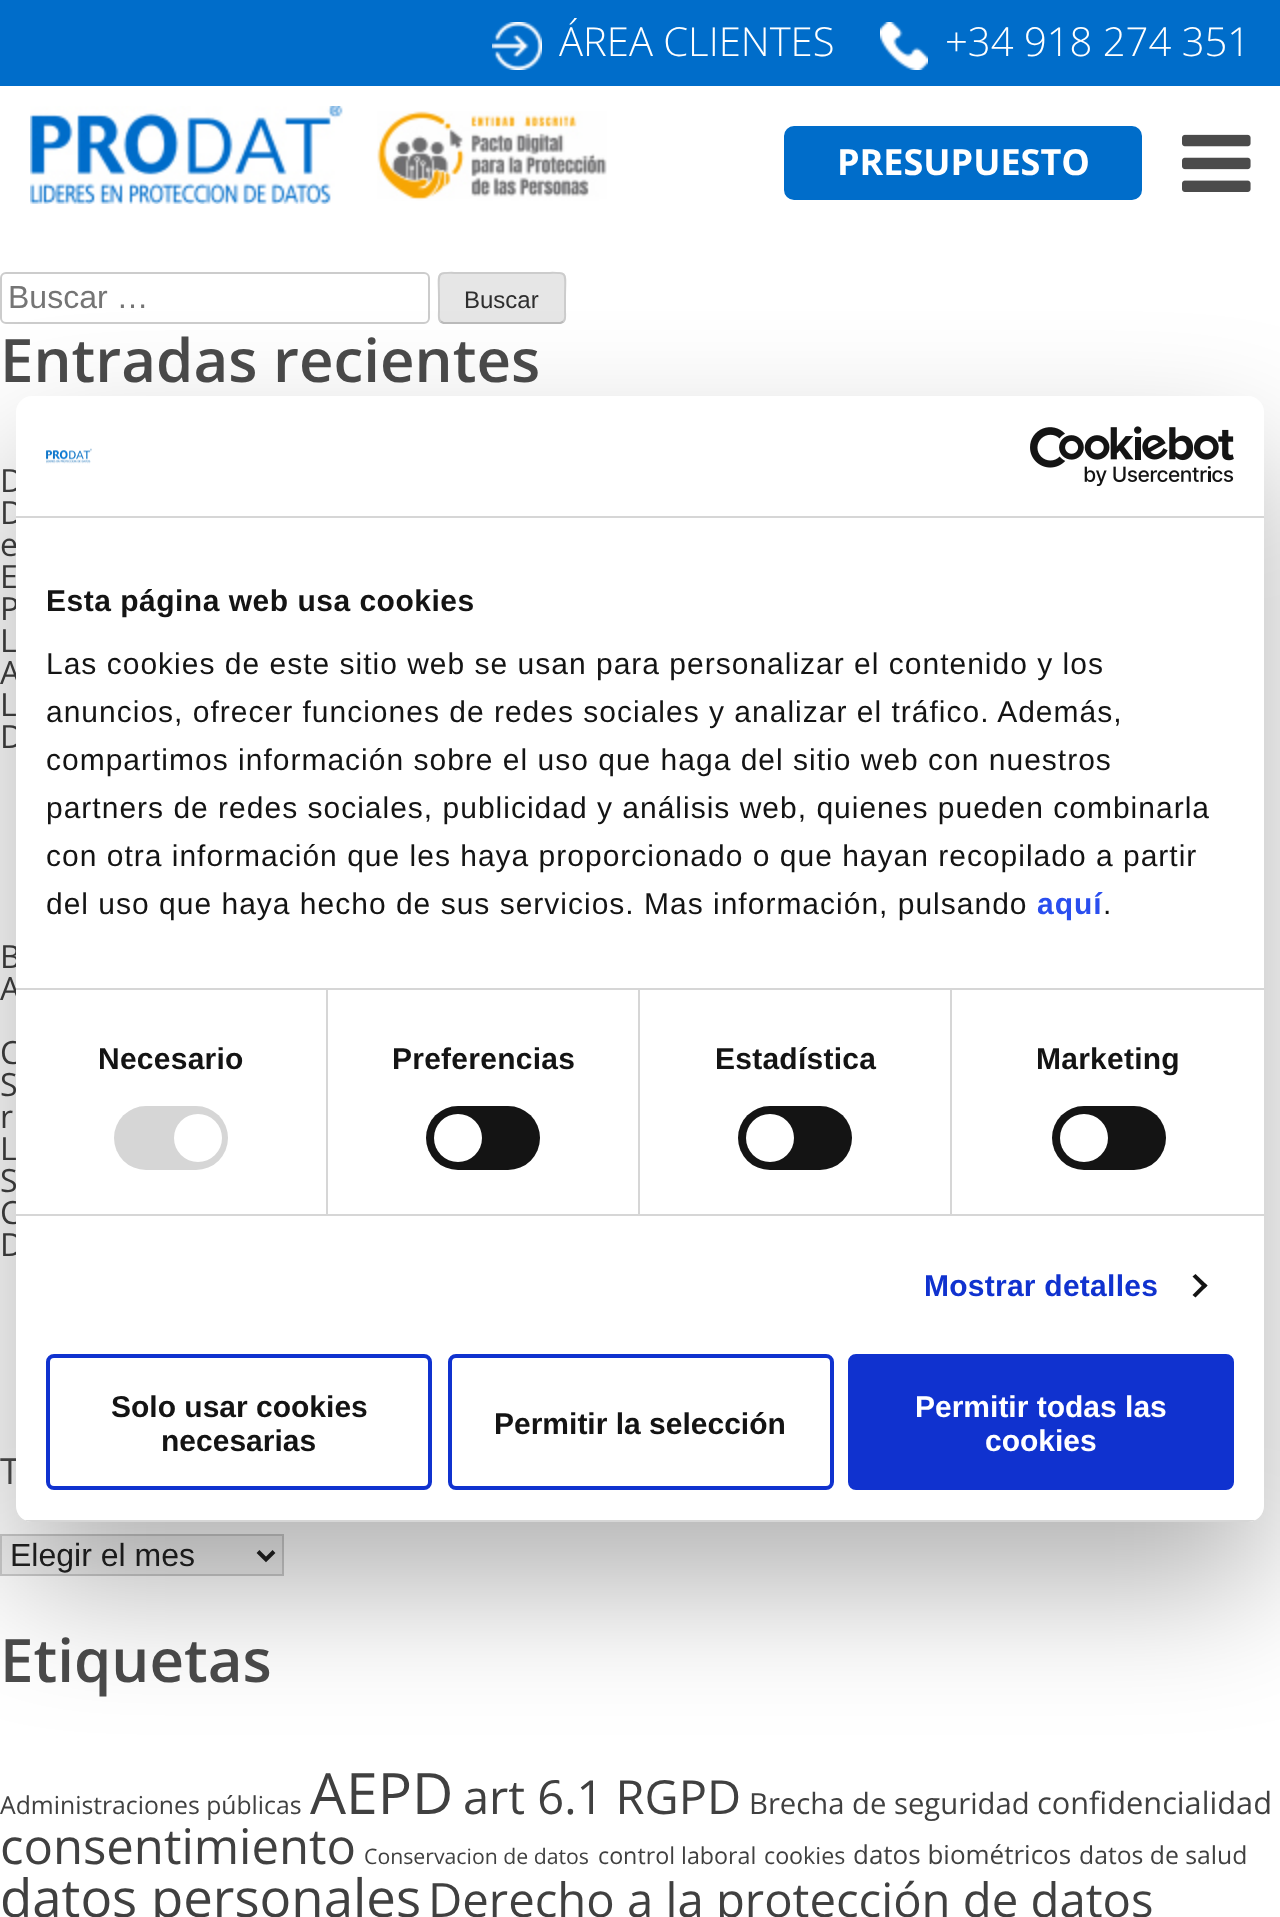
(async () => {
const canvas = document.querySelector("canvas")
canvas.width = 1280
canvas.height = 1917
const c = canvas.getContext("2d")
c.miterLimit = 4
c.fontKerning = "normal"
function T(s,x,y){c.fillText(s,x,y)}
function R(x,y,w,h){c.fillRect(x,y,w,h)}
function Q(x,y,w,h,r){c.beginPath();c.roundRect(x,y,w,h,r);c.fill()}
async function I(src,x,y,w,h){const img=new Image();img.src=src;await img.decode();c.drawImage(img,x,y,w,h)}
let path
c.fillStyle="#fff"
R(0,0,1280,1917)
c.fillStyle="#006dca"
R(0,0,1280,86)
await I("1.png",492,22,50,48)
c.font="300 40px Open Sans"
c.fillStyle="#fff"
T("ÁREA CLIENTES",559,56)
await I("2.png",880,22,48,48)
T("+34 918 274 351",945,56)
await I("3.png",30,106,313,98)
await I("4.png",377,111,230,90)
c.fillStyle="#006dca"
c.beginPath()
c.roundRect(785,127,356,72,9)
c.fill()
c.strokeStyle="#006dca"
c.lineWidth=2
c.stroke()
c.font="bold 36px Open Sans"
c.fillStyle="#fff"
T("PRESUPUESTO",837,175)
await I("5.png",1182,134,69,58)
c.beginPath()
c.roundRect(1,273,428,50,5)
c.strokeStyle="#ccc"
c.stroke()
c.font="32px Liberation Sans"
c.fillStyle="#757575"
T("Buscar …",8,308)
c.fillStyle="#e6e6e6"
Q(438,272,128,52,6)
path = new Path2D("M563.5 321.5l-3 1.5h-117l-3-1.5")
c.strokeStyle="#bbb"
c.stroke(path)
path = new Path2D("M440.5 321.5c-2.5-2.5-1.5-7.5-1.5-10v-13.5c0-29-5-25 24.5-25h77c29.5 0 24.5-4 24.5 25v13.5c0 2.5 1 7.5-1.5 10")
c.strokeStyle="#ccc"
c.stroke(path)
c.font="24px Liberation Sans"
c.fillStyle="#2e2e2e"
T("Buscar",464,308)
c.font="600 60px Open Sans"
c.fillStyle="#4b4b4b"
T("Entradas recientes",0,382)
c.font="32px Open Sans"
c.fillStyle="#404040"
T("D",0,492)
T("D",0,524)
T("e",0,556)
T("E",0,588)
T("P",0,620)
T("L",0,652)
T("A",0,684)
T("L",0,716)
T("D",0,748)
T("B",0,968)
T("A",0,1000)
T("C",0,1064)
T("S",0,1096)
T("r",0,1128)
T("L",0,1160)
T("S",0,1192)
T("C",0,1224)
T("D",0,1256)
c.font="36px Open Sans"
c.fillStyle="#4b4b4b"
T("T",0,1484)
c.fillStyle="#efefef"
c.beginPath()
c.rect(1,1535,282,40)
c.fill()
c.stroke()
path = new Path2D("M258 1551.5l8 8l8-8")
c.strokeStyle="#222"
c.lineWidth=4
c.stroke(path)
c.font="32px Liberation Sans"
c.fillStyle="#222"
T("Elegir el mes",10,1566)
c.font="600 60px Open Sans"
c.fillStyle="#4b4b4b"
T("Etiquetas",0,1682)
c.font="24.75px Open Sans"
c.fillStyle="#404040"
T("Administraciones públicas",0,1814)
c.font="57px Open Sans"
T("AEPD",310,1814)
c.font="47px Open Sans"
T("art 6.1 RGPD",463,1814)
c.font="29.25px Open Sans"
T("Brecha de seguridad",749,1814)
c.font="30.75px Open Sans"
T("confidencialidad",1037,1814)
c.font="49px Open Sans"
T("consentimiento",0,1864)
c.font="21.25px Open Sans"
T("Conservacion de datos",364,1864)
c.font="23.25px Open Sans"
T("control laboral",598,1864)
T("cookies",764,1864)
c.font="26px Open Sans"
T("datos biométricos",853,1864)
c.font="24.75px Open Sans"
T("datos de salud",1079,1864)
c.font="52.75px Open Sans"
T("datos personales",0,1917)
c.font="47.25px Open Sans"
T("Derecho a la protección de datos",428,1917)
c.fillStyle="#0000004d"
c.filter="blur(68px)"
c.beginPath()
c.roundRect(16,460,1248,1126,16)
c.fill()
c.filter="none"
c.fillStyle="#fff"
Q(16,396,1248,1126,16)
c.fillStyle="#d6d6d6"
R(16,516,1248,2)
await I("6.png",46,448,46,16)
await I("7.png",1030,426,204,60)
R(16,988,1248,2)
c.letterSpacing="0.5px"
c.font="bold 30px Liberation Sans"
c.fillStyle="#141414"
T("Esta página web usa cookies",46,611)
c.letterSpacing="1px"
c.font="30px Liberation Sans"
T("Las cookies de este sitio web se usan para personalizar el contenido y los",46,674)
T("anuncios, ofrecer funciones de redes sociales y analizar el tráfico. Además,",46,722)
T("compartimos información sobre el uso que haga del sitio web con nuestros",46,770)
T("partners de redes sociales, publicidad y análisis web, quienes pueden combinarla",46,818)
T("con otra información que les haya proporcionado o que hayan recopilado a partir",46,866)
T("del uso que haya hecho de sus servicios. Mas información, pulsando",46,914)
c.font="bold 30px Liberation Sans"
c.fillStyle="#2a4eef"
T("aquí",1037,914)
c.font="30px Liberation Sans"
c.fillStyle="#141414"
T(".",1103,914)
c.fillStyle="#d6d6d6"
R(16,1214,1248,2)
R(326,990,2,224)
c.letterSpacing="0.25px"
c.font="bold 30px Liberation Sans"
c.fillStyle="#141414"
T("Necesario",98,1069)
c.fillStyle="#d6d6d6"
Q(114,1106,114,64,32)
c.fillStyle="#fff"
c.beginPath()
c.arc(198,1138,24,0,7)
c.fill()
c.fillStyle="#d6d6d6"
R(638,990,2,224)
c.fillStyle="#141414"
T("Preferencias",392,1069)
Q(426,1106,114,64,32)
c.fillStyle="#fff"
c.beginPath()
c.arc(458,1138,24,0,7)
c.fill()
c.fillStyle="#d6d6d6"
R(950,990,2,224)
c.fillStyle="#141414"
T("Estadística",715,1069)
Q(738,1106,114,64,32)
c.fillStyle="#fff"
c.beginPath()
c.arc(770,1138,24,0,7)
c.fill()
c.fillStyle="#141414"
T("Marketing",1036,1069)
Q(1052,1106,114,64,32)
c.fillStyle="#fff"
c.beginPath()
c.arc(1084,1138,24,0,7)
c.fill()
c.fillStyle="#1032cf"
T("Mostrar detalles",924,1296)
c.fillStyle="#141414"
path = new Path2D("M1195.5 1274l12 11.5l-3 3l-12-12z")
c.fill(path)
path = new Path2D("M1204.5 1283l3 2.5l-12 12l-3-2.5z")
c.fill(path)
c.save()
c.beginPath()
c.roundRect(16,396,1248,1126,16)
c.clip()
c.fillStyle="#d6d6d6"
R(16,1520,1248,2)
c.restore()
c.beginPath()
c.roundRect(48,1356,382,132,6)
c.strokeStyle="#1032cf"
c.stroke()
c.letterSpacing="0px"
T("Solo usar cookies",111,1417)
T("necesarias",161,1451)
c.beginPath()
c.roundRect(450,1356,382,132,6)
c.stroke()
T("Permitir la selección",494,1434)
c.fillStyle="#1032cf"
c.beginPath()
c.roundRect(850,1356,382,132,6)
c.fill()
c.stroke()
c.fillStyle="#fff"
T("Permitir todas las",915,1417)
T("cookies",985,1451)
})()
